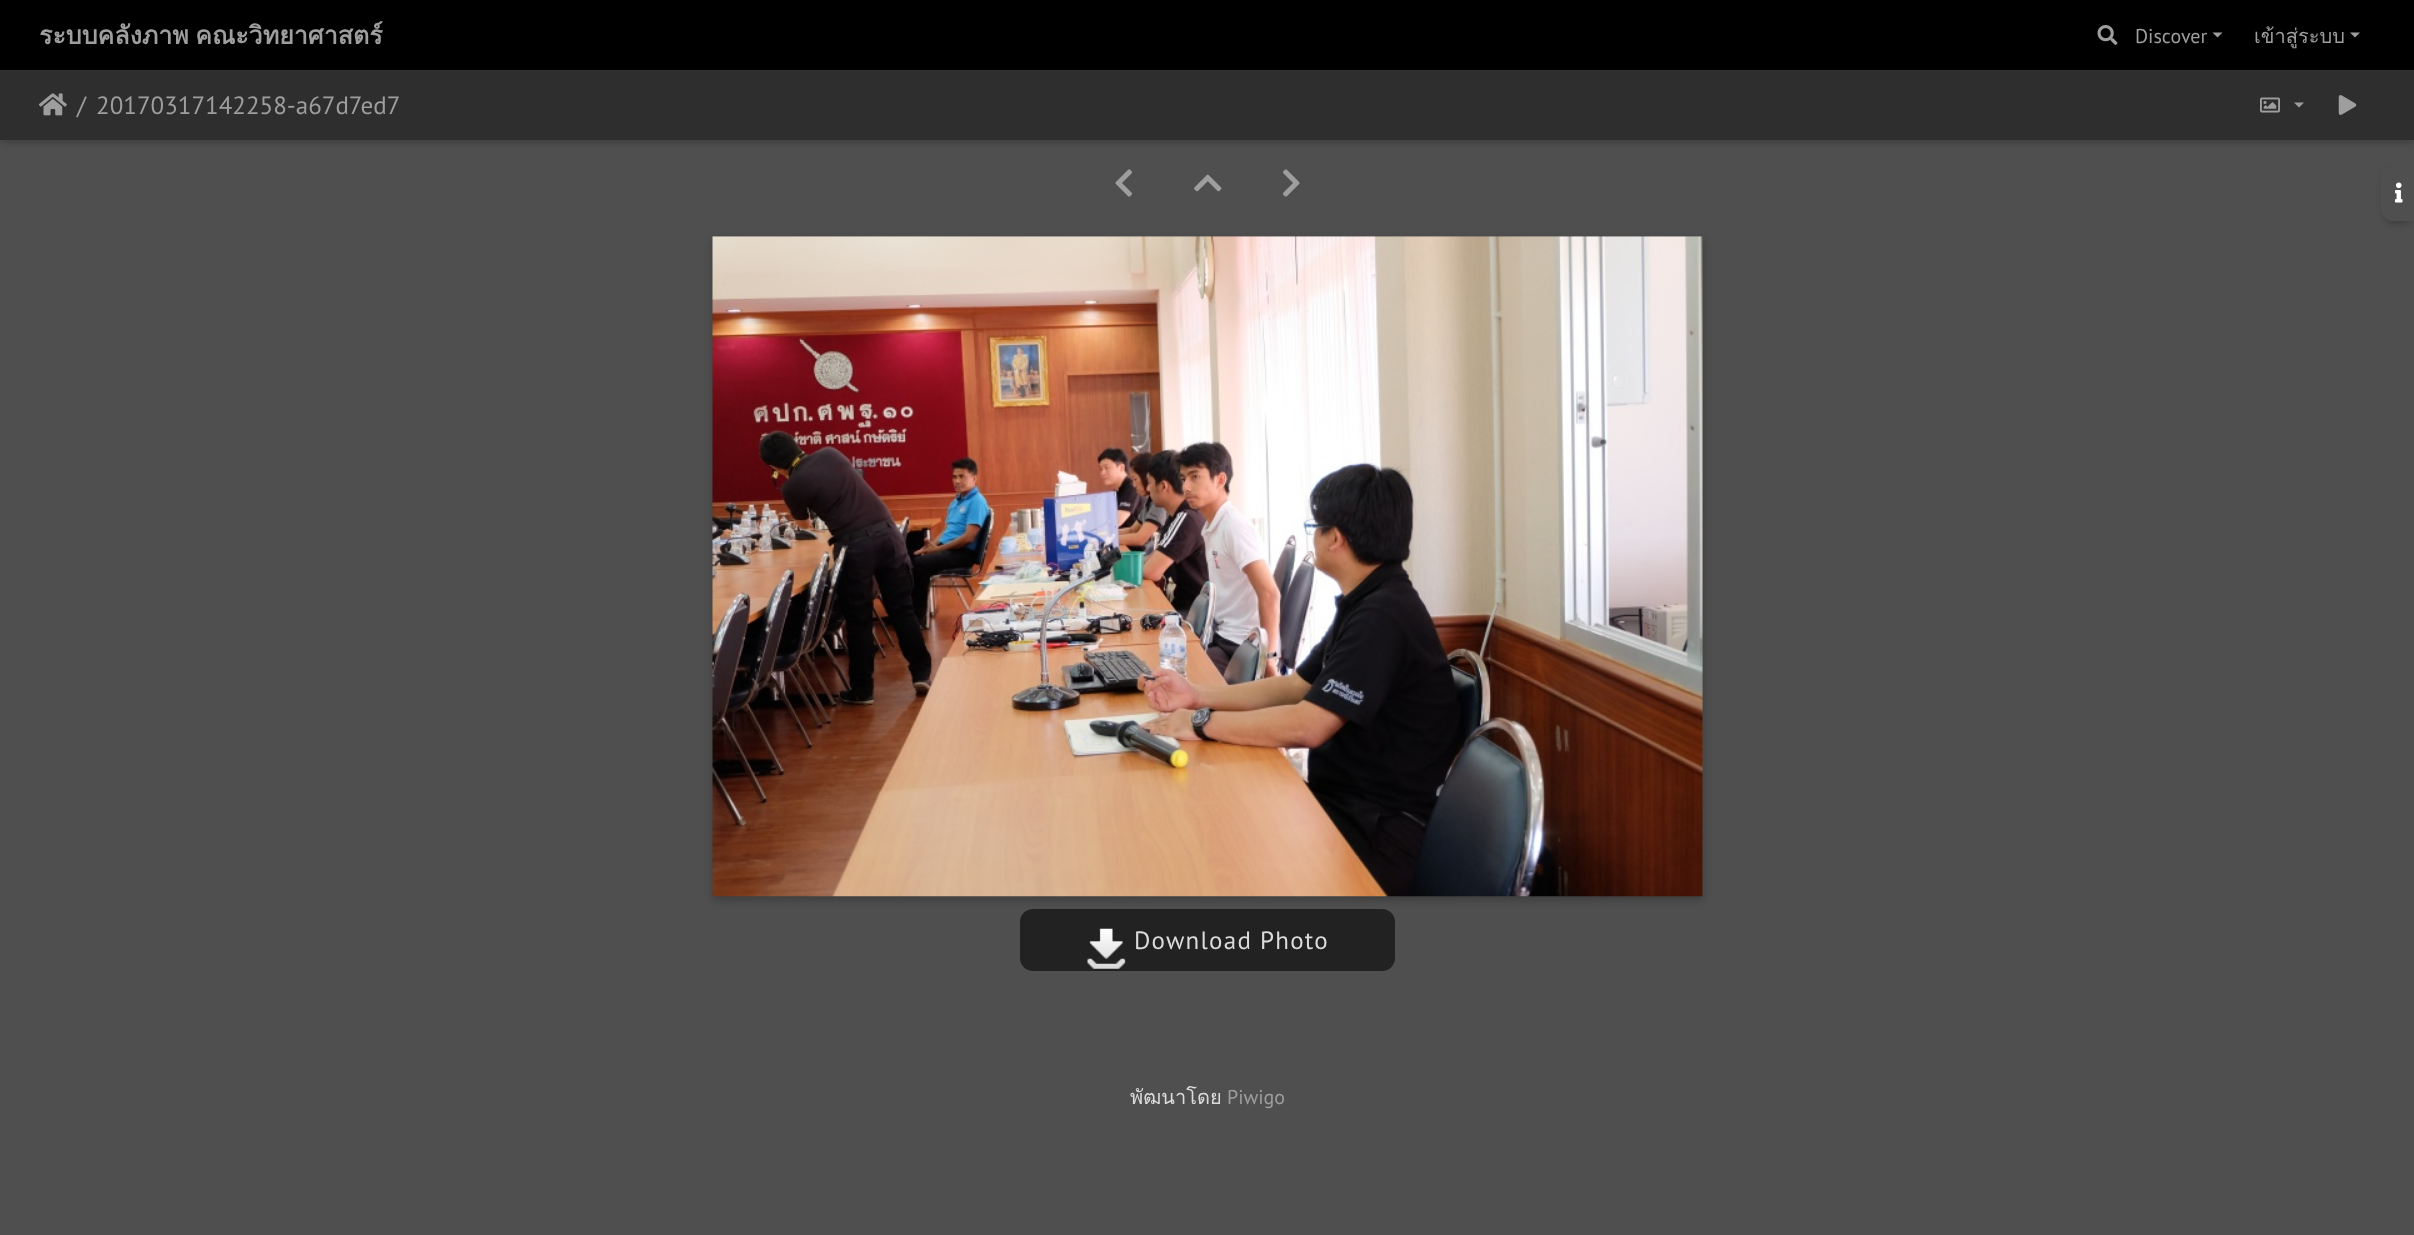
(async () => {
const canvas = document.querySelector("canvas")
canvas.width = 2414
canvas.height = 1235
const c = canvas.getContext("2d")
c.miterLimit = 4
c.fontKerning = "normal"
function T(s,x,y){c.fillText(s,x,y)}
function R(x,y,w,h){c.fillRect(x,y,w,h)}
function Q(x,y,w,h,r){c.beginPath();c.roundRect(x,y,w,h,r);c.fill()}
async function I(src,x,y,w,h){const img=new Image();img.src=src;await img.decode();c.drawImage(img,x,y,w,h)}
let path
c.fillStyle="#4f4f4f"
R(0,0,2414,1235)
c.fillStyle="#00000033"
c.filter="blur(3px)"
c.beginPath()
c.rect(1,75,2413,68)
c.fill()
c.filter="none"
c.fillStyle="#000"
R(0,0,2414,70)
c.wordSpacing="-2px"
c.font="bold 25px Loma"
c.fillStyle="#9e9e9e"
T("ระบบคลังภาพ คณะวิทยาศาสตร์",39,44)
await I("1.png",2097,25,21,20)
c.wordSpacing="0px"
c.font="20px PT Sans"
T("Discover",2135,43)
path = new Path2D("M2212.5 32.5h10l-5 5z")
c.fill(path)
c.font="20px Loma"
T("เข้าสู่ระบบ",2254,43)
path = new Path2D("M2350 32.5h10l-5 5z")
c.fill(path)
c.fillStyle="#2e2e2e"
R(0,70,2414,70)
await I("2.png",39,93,28,23)
c.font="25px PT Sans"
c.fillStyle="#9e9e9e"
T("/",77,114)
T("20170317142258-a67d7ed7",96,114)
await I("3.png",2260,97,20,16)
path = new Path2D("M2294 102.5h10l-5 5z")
c.fill(path)
await I("4.png",2338,95,19,20)
await I("5.png",1115,169,17,28)
await I("6.png",1194,174,28,18)
await I("7.png",1283,169,17,28)
c.fillStyle="#00000033"
c.filter="blur(3px)"
c.beginPath()
c.roundRect(2383,169,31,55,11)
c.fill()
c.filter="none"
c.fillStyle="#4f4f4f"
path = new Path2D("M2394 164h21v57h-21c-7 0-13-6-13-13v-31c0-7 6-13 13-13z")
c.fill(path)
path = new Path2D("M2394 164h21v57h-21c-7 0-13-5-13-12v-33c0-7 6-12 13-12zm0 1h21v55h-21c-6 0-12-5-12-11v-33c0-6 6-11 12-11z")
c.fill(path,"evenodd")
await I("8.png",2395,182,8,21)
c.fillStyle="#222"
Q(1020,909,375,62,13)
c.save()
path = new Path2D("M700 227h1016v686h-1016zm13 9h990v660h-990z")
c.clip(path,"evenodd")
c.fillStyle="#0000003b"
c.filter="blur(4px)"
c.beginPath()
c.rect(713,240,990,660)
c.fill()
c.filter="none"
c.restore()
await I("9.png",712,236,991,661)
await I("10.png",1087,928,39,41)
c.letterSpacing="1.25px"
c.fillStyle="#dbdbdb"
T("Download Photo",1134,949)
c.letterSpacing="0px"
c.font="20px Loma"
T("พัฒนาโดย",1130,1104)
c.font="20px PT Sans"
c.fillStyle="#9e9e9e"
T("Piwigo",1227,1104)
})()
